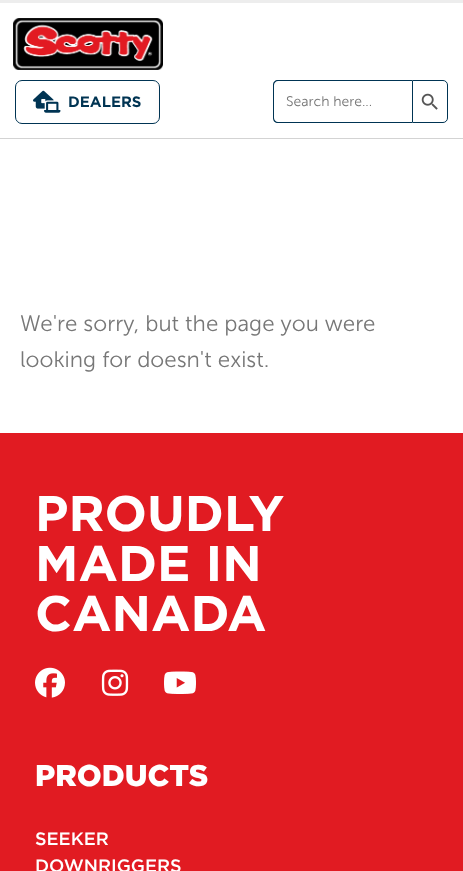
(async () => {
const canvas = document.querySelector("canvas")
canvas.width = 463
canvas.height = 871
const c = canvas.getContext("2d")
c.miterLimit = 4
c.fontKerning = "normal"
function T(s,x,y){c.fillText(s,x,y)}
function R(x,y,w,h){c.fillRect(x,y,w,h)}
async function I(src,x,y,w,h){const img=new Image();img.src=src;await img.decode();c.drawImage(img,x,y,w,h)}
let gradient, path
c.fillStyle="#fff"
R(0,0,463,871)
c.fillStyle="#ededed"
R(0,0,463,3)
c.fillStyle="#d3d3d3"
R(0,138,463,1)
await I("1.png",13,18,150,52)
gradient = c.createLinearGradient(442,102,13,102)
gradient.addColorStop(0,"#e11b22")
gradient.addColorStop(.33,"#c36265")
gradient.addColorStop(.67,"#fff")
gradient.addColorStop(1,"#fff")
c.fillStyle = gradient
c.beginPath()
c.roundRect(15.5,80.5,144,43,6.5)
c.fill()
c.strokeStyle="#003453"
c.stroke()
await I("2.png",33,90,28,23)
c.font="bold 15px Gotham"
c.fillStyle="#003453"
T("DEALERS",68,107)
path = new Path2D("M278 80h134v43h-134c-3 0-5-2-5-5v-33c0-3 2-5 5-5zm0 1h134v41h-134c-2 0-4-2-4-4v-33c0-2 2-4 4-4z")
c.fill(path,"evenodd")
c.font="300 14px 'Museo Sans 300'"
c.fillStyle="#777"
T("Search here...",286,106)
c.beginPath()
c.roundRect(412.5,80.5,35,42,[0,4.5,4.5,0])
c.stroke()
await I("3.png",421,93,17,17)
c.font="300 22.4px 'Museo Sans 300'"
T("We're sorry, but the page you were",20,331)
T("looking for doesn't exist.",20,367)
c.fillStyle="#e11b22"
R(0,433,463,438)
c.font="bold 50px Gotham"
c.fillStyle="#fff"
T("PROUDLY",35,531)
T("MADE IN",35,581)
T("CANADA",35,631)
await I("4.png",35,667,30,31)
await I("5.png",101,669,28,27)
await I("6.png",164,671,32,23)
c.font="900 30px Gotham"
T("PRODUCTS",35,786)
c.font="500 18px Gotham"
T("SEEKER",35,845)
T("DOWNRIGGERS",35,872)
})()
